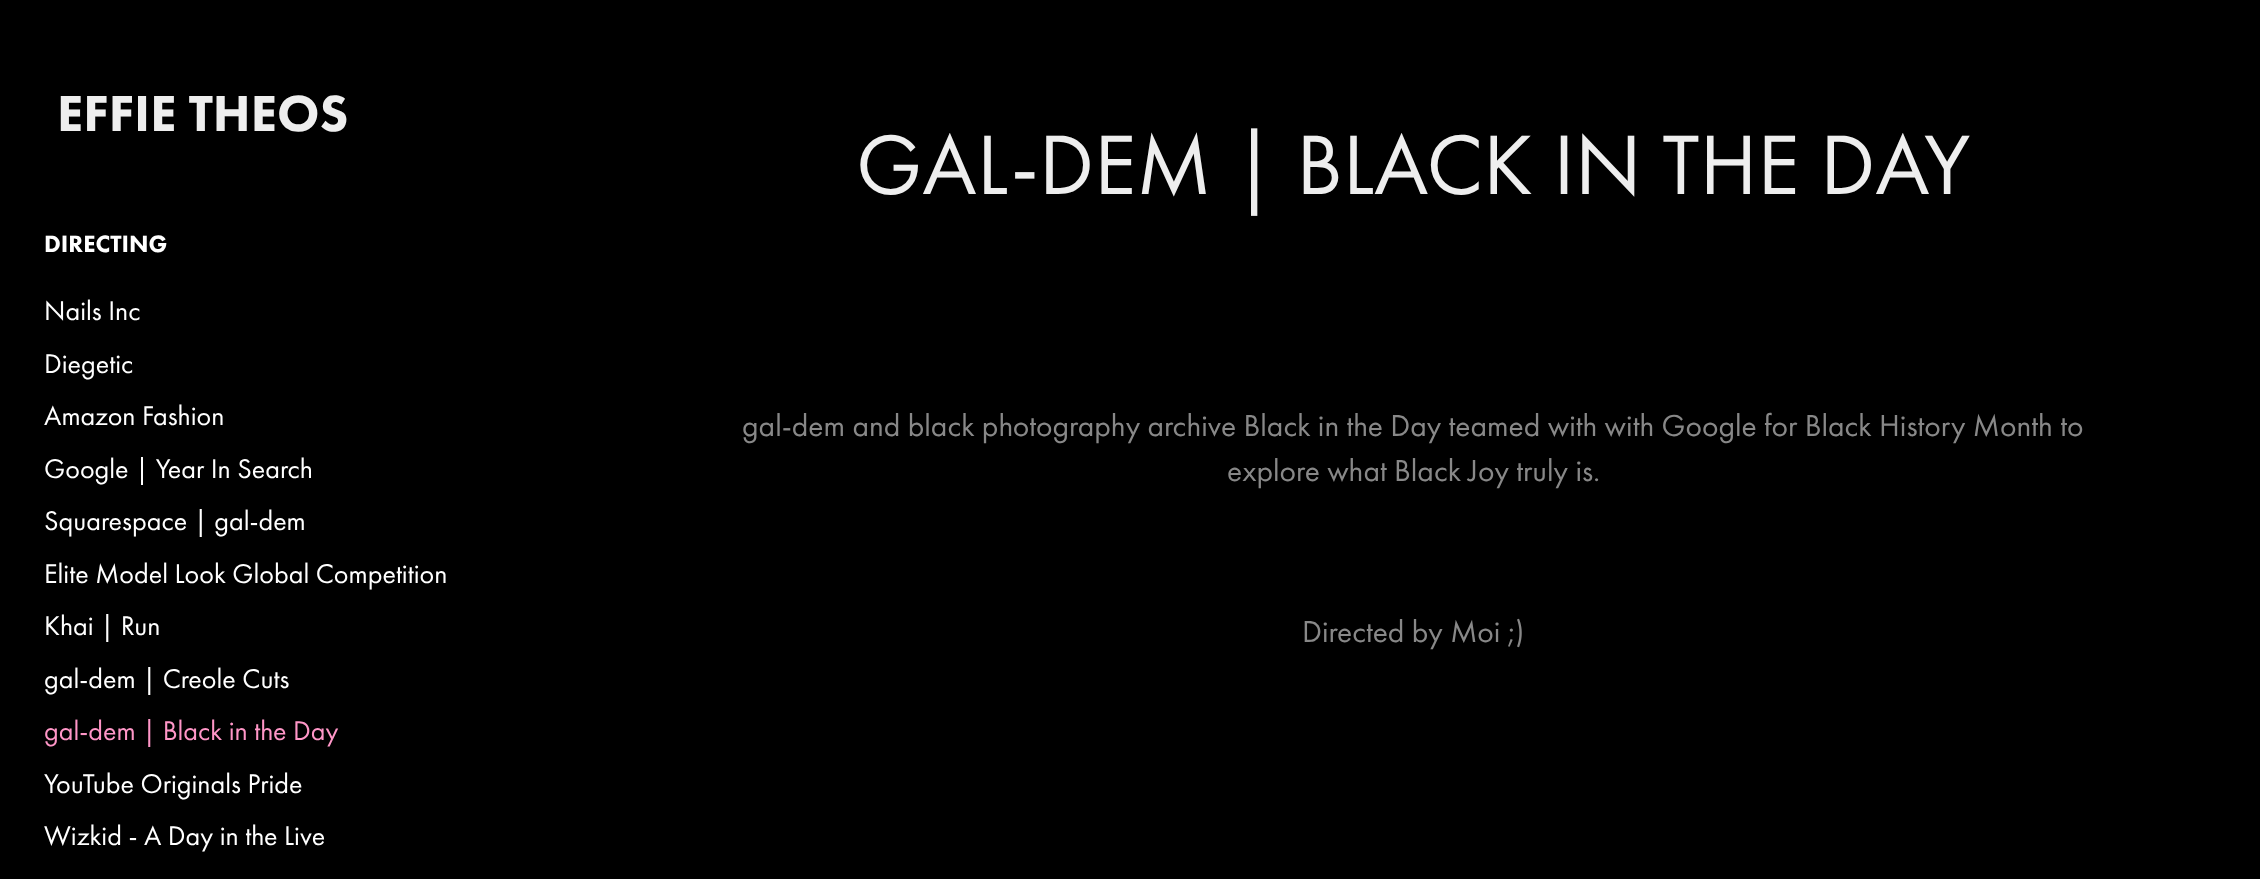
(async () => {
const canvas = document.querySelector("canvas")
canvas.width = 2260
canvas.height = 879
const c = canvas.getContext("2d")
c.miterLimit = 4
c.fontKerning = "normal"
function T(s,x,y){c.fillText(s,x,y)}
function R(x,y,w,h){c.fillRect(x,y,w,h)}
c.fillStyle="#000"
R(0,0,2260,879)
c.font="900 52.5px Futura PT"
c.fillStyle="#eee"
T("EFFIE THEOS",57,131)
c.font="900 24.5px Futura PT"
c.fillStyle="#fff"
T("DIRECTING",44,252)
c.font="28px Futura PT"
T("Nails Inc",44,320)
T("Diegetic",44,373)
T("Amazon Fashion",44,425)
T("Google | Year In Search",44,478)
T("Squarespace | gal-dem",44,530)
T("Elite Model Look Global Competition",44,583)
T("Khai | Run",44,635)
T("gal-dem | Creole Cuts",44,688)
c.fillStyle="#ff96c7"
T("gal-dem | Black in the Day",44,740)
c.fillStyle="#fff"
T("YouTube Originals Pride",44,793)
T("Wizkid - A Day in the Live",44,845)
c.font="87.5px Futura PT"
c.fillStyle="#eee"
T("GAL-DEM | BLACK IN THE DAY",856,194)
c.font="31.5px Futura PT"
c.fillStyle="#888"
T("gal-dem and black photography archive Black in the Day teamed with with Google for Black History Month to",742,436)
T("explore what Black Joy truly is.",1227,481)
T("Directed by Moi ;)",1302,642)
})()
